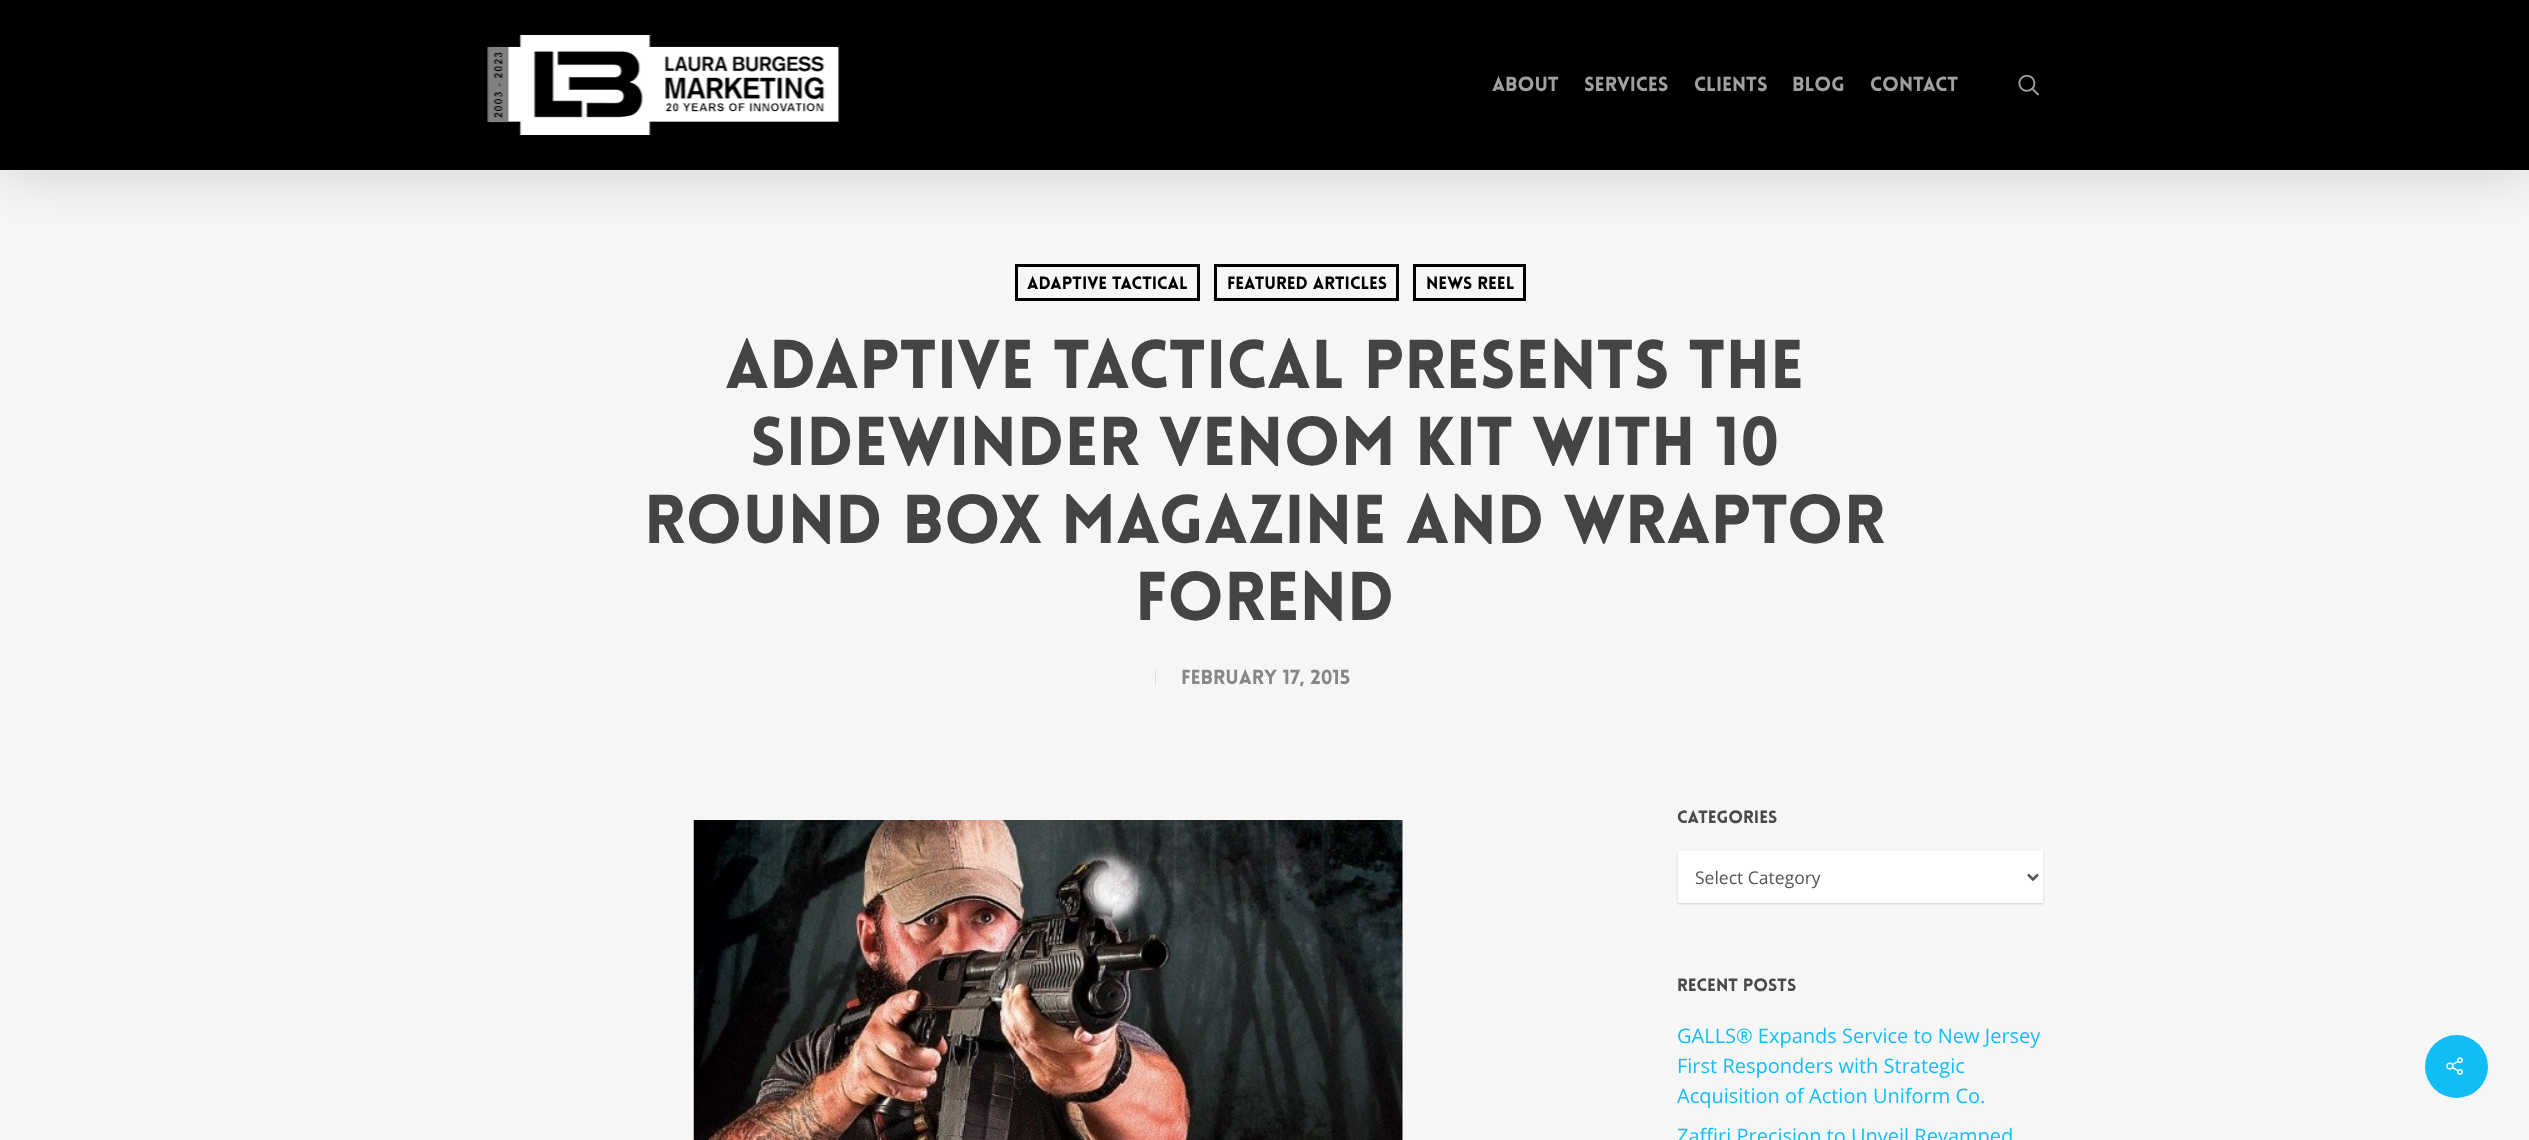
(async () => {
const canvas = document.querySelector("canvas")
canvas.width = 2529
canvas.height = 1140
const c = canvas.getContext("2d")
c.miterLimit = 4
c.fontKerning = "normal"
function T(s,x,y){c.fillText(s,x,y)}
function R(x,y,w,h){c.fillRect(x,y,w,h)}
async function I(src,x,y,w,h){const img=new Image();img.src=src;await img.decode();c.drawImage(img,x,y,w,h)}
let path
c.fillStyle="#f6f6f6"
R(0,0,2529,1140)
c.fillStyle="#00000026"
c.filter="blur(28px)"
c.beginPath()
c.rect(0,4,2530,170)
c.fill()
c.filter="none"
c.fillStyle="#000"
R(0,0,2529,170)
await I("1.png",487,35,353,100)
c.font="900 20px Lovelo"
c.fillStyle="#a0a0a0"
T("About",1492,91)
T("Services",1584,91)
T("Clients",1694,91)
T("Blog",1792,91)
T("Contact",1870,91)
await I("2.png",2018,74,21,22)
c.strokeStyle="#000"
c.lineWidth=3
c.strokeRect(1016.5,265.5,182,34)
c.font="900 17.5px Lovelo"
c.fillStyle="#000"
T("Adaptive Tactical",1027,289)
c.strokeRect(1215.5,265.5,182,34)
T("Featured Articles",1227,289)
c.strokeRect(1414.5,265.5,110,34)
T("News Reel",1426,289)
c.font="900 67.5px Lovelo"
c.fillStyle="#444"
T("Adaptive Tactical Presents the",725,388)
T("Sidewinder Venom Kit with 10",750,465)
T("Round Box Magazine and Wraptor",644,543)
T("Forend",1135,620)
c.fillStyle="#ddd"
R(1155,669,1,17)
c.font="900 20px Lovelo"
c.fillStyle="#878787"
T("February 17, 2015",1181,684)
await I("3.png",693,820,710,320)
c.font="900 17.5px Lovelo"
c.fillStyle="#4a4a4a"
T("Categories",1677,823)
c.fillStyle="#00000029"
c.filter="blur(1px)"
c.beginPath()
c.rect(1678,853,365,51)
c.fill()
c.filter="none"
c.fillStyle="#fff"
R(1678,851,365,52)
path = new Path2D("M2028 874.5l5 5l5-5")
c.strokeStyle="#555"
c.lineWidth=2.5
c.stroke(path)
c.font="17.5px Open Sans"
c.fillStyle="#555"
T("Select Category",1695,884)
c.font="900 17.5px Lovelo"
c.fillStyle="#4a4a4a"
T("Recent Posts",1677,991)
c.font="20px Open Sans"
c.fillStyle="#10bef5"
T("GALLS® Expands Service to New Jersey",1677,1043)
T("First Responders with Strategic",1677,1073)
T("Acquisition of Action Uniform Co.",1677,1103)
T("Zaffiri Precision to Unveil Revamped",1677,1143)
c.beginPath()
c.arc(2456.5,1066.5,31.5,0,7)
c.fill()
await I("4.png",2446,1057,17,18)
})()
